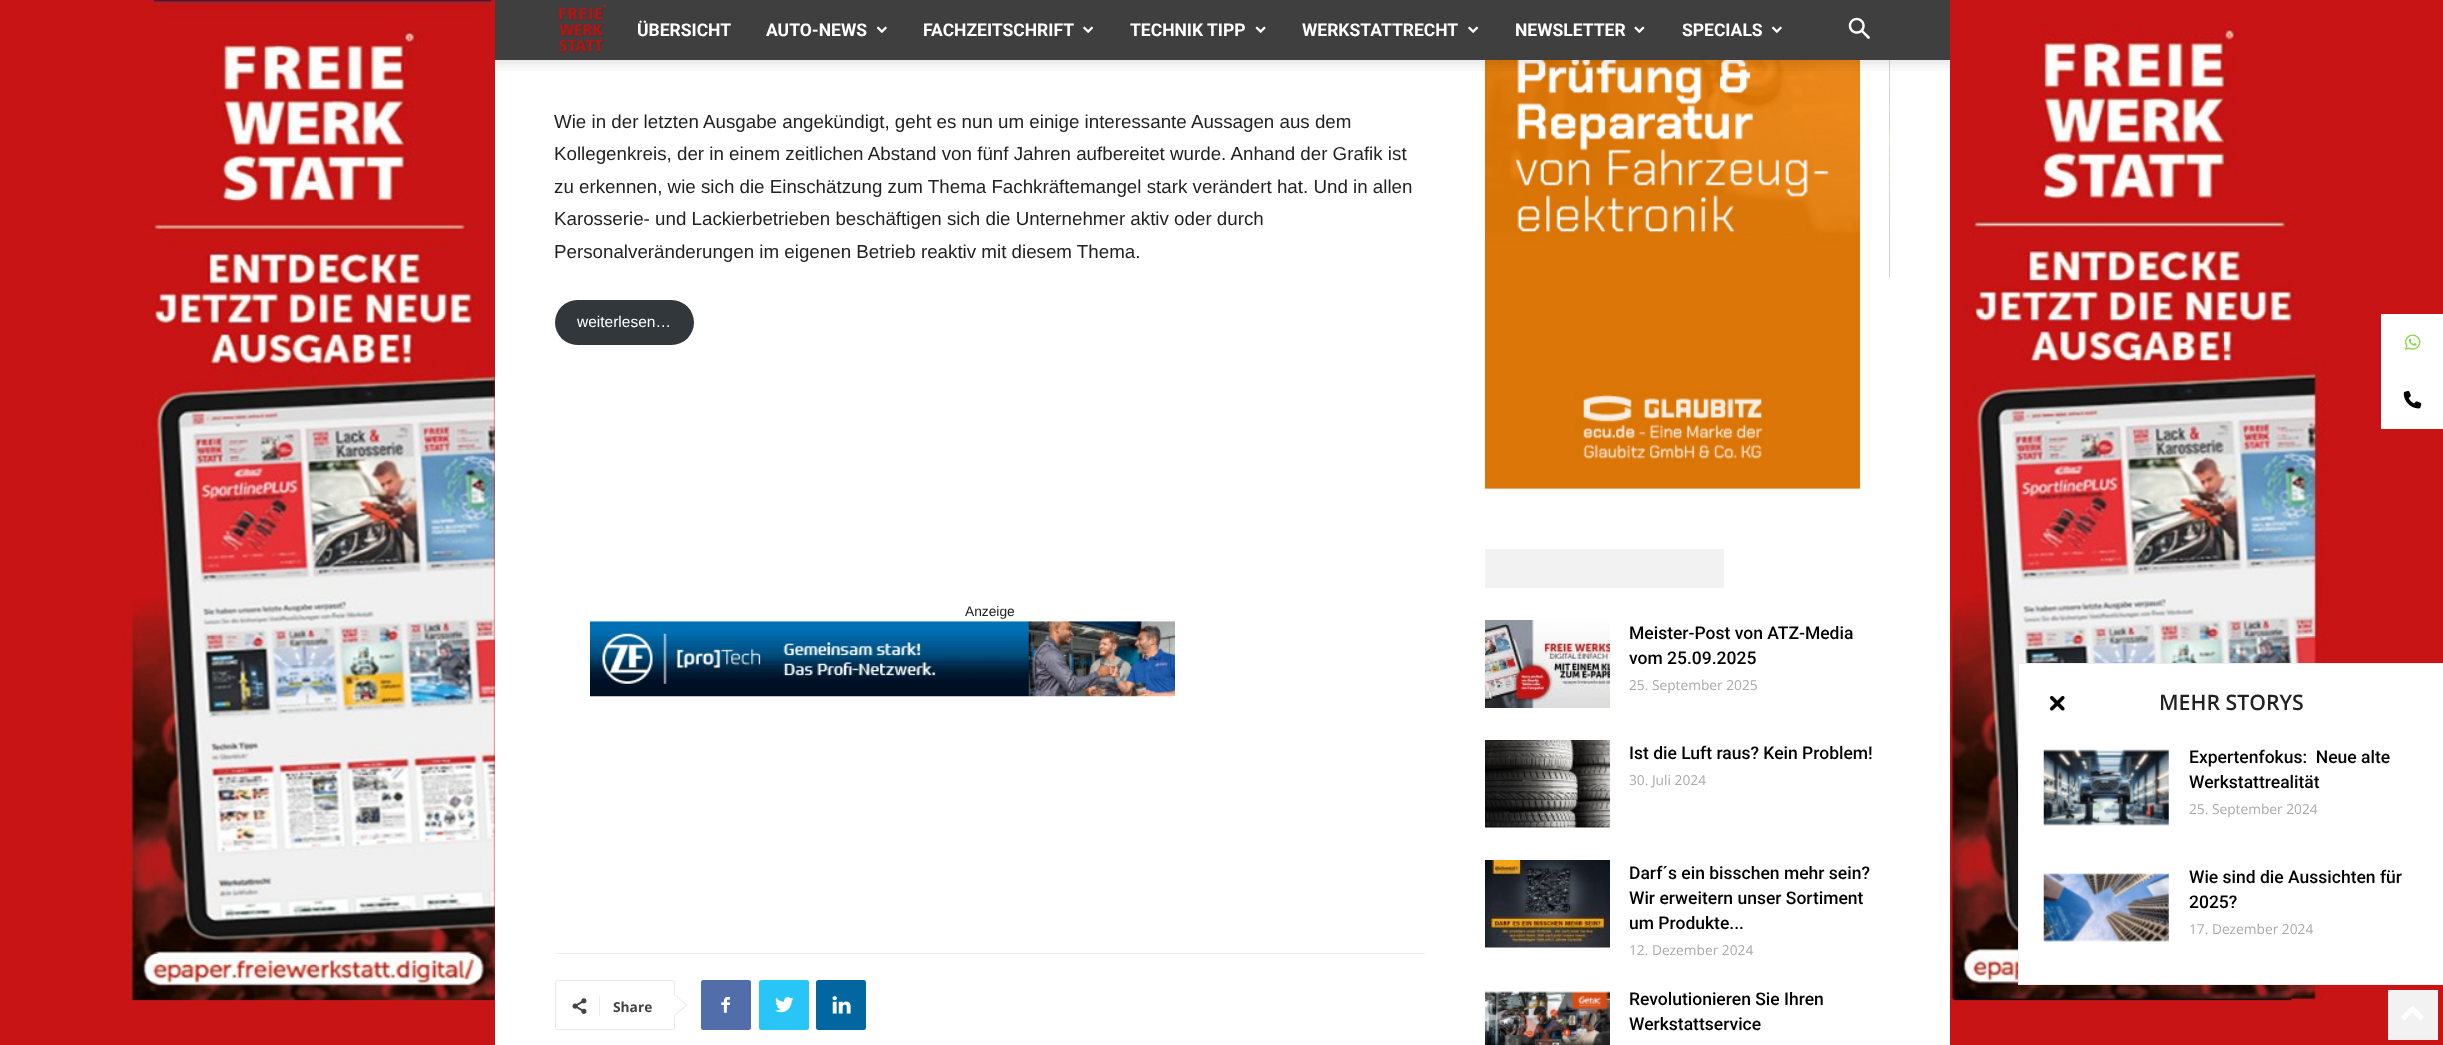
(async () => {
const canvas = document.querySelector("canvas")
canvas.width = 2443
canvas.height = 1045
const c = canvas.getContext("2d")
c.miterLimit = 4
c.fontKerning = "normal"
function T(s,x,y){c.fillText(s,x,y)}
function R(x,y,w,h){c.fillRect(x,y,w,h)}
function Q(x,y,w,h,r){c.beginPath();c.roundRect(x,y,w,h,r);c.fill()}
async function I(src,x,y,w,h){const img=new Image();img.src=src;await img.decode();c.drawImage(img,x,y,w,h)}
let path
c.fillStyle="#c81415"
R(0,0,2443,1045)
await I("1.png",123,0,2203,1001)
c.fillStyle="#3f3f3f"
R(495,0,1455,60)
await I("2.png",558,3,49,50)
c.font="bold 17.5px Roboto"
c.fillStyle="#fff"
T("ÜBERSICHT",637,36)
T("AUTO-NEWS",766,36)
await I("3.png",876,26,11,7)
T("FACHZEITSCHRIFT",923,36)
await I("4.png",1083,26,11,7)
T("TECHNIK TIPP",1130,36)
await I("5.png",1255,26,11,7)
T("WERKSTATTRECHT",1302,36)
await I("4.png",1468,26,11,7)
T("NEWSLETTER",1515,36)
await I("6.png",1634,26,11,7)
T("SPECIALS",1682,36)
await I("3.png",1771,26,11,7)
await I("7.png",1848,17,22,22)
R(495,60,1455,985)
await I("14.png",1485,60,375,429)
await I("15.png",1889,60,1,218)
await I("8.png",495,60,1455,11)
c.font="18.75px Liberation Sans"
c.fillStyle="#222"
T("Wie in der letzten Ausgabe angekündigt, geht es nun um einige interessante Aussagen aus dem",554,128)
T("Kollegenkreis, der in einem zeitlichen Abstand von fünf Jahren aufbereitet wurde. Anhand der Grafik ist",554,160)
T("zu erkennen, wie sich die Einschätzung zum Thema Fachkräftemangel stark verändert hat. Und in allen",554,193)
T("Karosserie- und Lackierbetrieben beschäftigen sich die Unternehmer aktiv oder durch",554,225)
T("Personalveränderungen im eigenen Betrieb reaktiv mit diesem Thema.",554,258)
c.fillStyle="#32373c"
Q(555,300,139,45,22.5)
c.font="15.5px Liberation Sans"
c.fillStyle="#fff"
T("weiterlesen…",577,327)
c.font="13.75px Liberation Sans"
c.fillStyle="#222"
T("Anzeige",965,616)
await I("9.png",590,621,585,76)
c.fillStyle="#ededed"
R(555,953,870,1)
c.beginPath()
c.roundRect(555.5,980.5,119,49,2)
c.strokeStyle="#e9e9e9"
c.stroke()
c.fillStyle="#e9e9e9"
path = new Path2D("M674 1016v-22l13.5 11z")
c.fill(path)
await I("10.png",572,998,15,16)
c.fillStyle="#ebebeb"
R(599,996,1,20)
c.font="bold 13.75px Open Sans"
c.fillStyle="#444"
T("Share",613,1012)
c.fillStyle="#fff"
path = new Path2D("M674 1015v-20l12 10z")
c.fill(path)
c.fillStyle="#516eab"
Q(701,980,50,50,2.5)
await I("11.png",721,996,9,17)
c.fillStyle="#29c5f6"
Q(759,980,50,50,2.5)
await I("12.png",775,997,19,16)
c.fillStyle="#0266a0"
Q(816,980,50,50,2.5)
await I("13.png",832,996,19,18)
c.fillStyle="#f2f2f2"
R(1485,549,239,39)
await I("16.png",1485,620,125,88)
c.font="500 17.5px Roboto"
c.fillStyle="#000"
T("Meister-Post von ATZ-Media",1629,639)
T("vom 25.09.2025",1629,664)
c.font="13.75px Open Sans"
c.fillStyle="#aaa"
T("25. September 2025",1629,690)
await I("17.png",1485,740,125,88)
c.font="500 17.5px Roboto"
c.fillStyle="#000"
T("Ist die Luft raus? Kein Problem!",1629,759)
c.font="13.75px Open Sans"
c.fillStyle="#aaa"
T("30. Juli 2024",1629,785)
await I("18.png",1485,860,125,88)
c.font="500 17.5px Roboto"
c.fillStyle="#000"
T("Darf´s ein bisschen mehr sein?",1629,879)
T("Wir erweitern unser Sortiment",1629,904)
T("um Produkte...",1629,929)
c.font="13.75px Open Sans"
c.fillStyle="#aaa"
T("12. Dezember 2024",1629,955)
await I("19.png",1485,991,125,54)
c.font="500 17.5px Roboto"
c.fillStyle="#000"
T("Revolutionieren Sie Ihren",1629,1005)
T("Werkstattservice",1629,1030)
c.fillStyle="#fff"
R(2381,314,62,115)
await I("20.png",2405,334,16,16)
await I("21.png",2403,390,19,19)
R(2019,664,424,320)
c.fillStyle="#ededed"
R(2018,663,425,1)
R(2018,984,425,1)
R(2018,663,1,322)
await I("22.png",2050,696,15,15)
c.font="600 21.25px Open Sans"
c.fillStyle="#222"
T("MEHR STORYS",2159,710)
await I("23.png",2043,749,126,77)
c.font="500 17.5px Roboto"
c.fillStyle="#000"
T("Expertenfokus:  Neue alte",2189,763)
T("Werkstattrealität",2189,788)
c.font="13.75px Open Sans"
c.fillStyle="#aaa"
T("25. September 2024",2189,814)
await I("24.png",2043,873,126,69)
c.font="500 17.5px Roboto"
c.fillStyle="#000"
T("Wie sind die Aussichten für",2189,883)
T("2025?",2189,908)
c.font="13.75px Open Sans"
c.fillStyle="#aaa"
T("17. Dezember 2024",2189,934)
c.fillStyle="#f2f2f2"
R(2388,990,50,50)
await I("25.png",2401,1006,23,14)
})()
